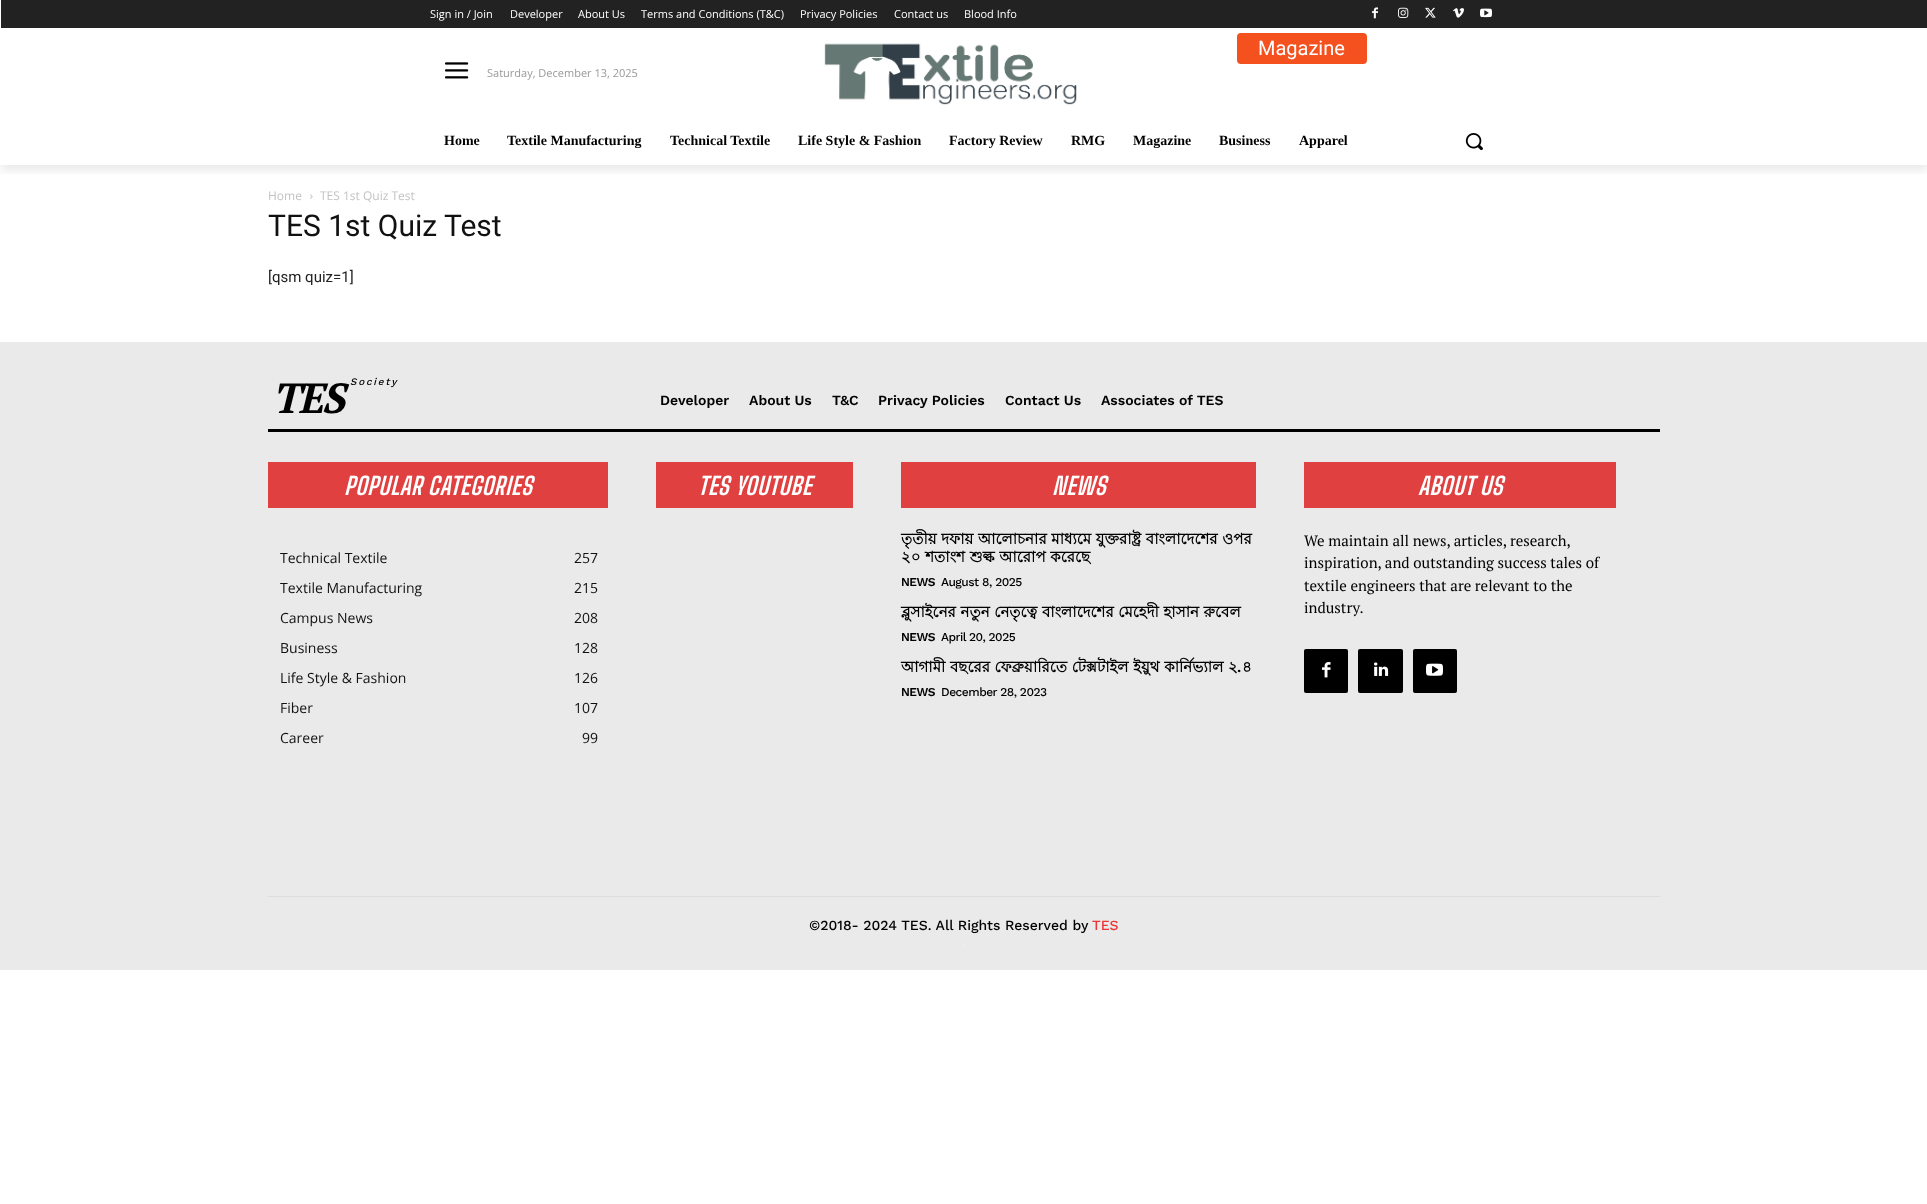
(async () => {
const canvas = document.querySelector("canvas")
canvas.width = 1927
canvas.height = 1204
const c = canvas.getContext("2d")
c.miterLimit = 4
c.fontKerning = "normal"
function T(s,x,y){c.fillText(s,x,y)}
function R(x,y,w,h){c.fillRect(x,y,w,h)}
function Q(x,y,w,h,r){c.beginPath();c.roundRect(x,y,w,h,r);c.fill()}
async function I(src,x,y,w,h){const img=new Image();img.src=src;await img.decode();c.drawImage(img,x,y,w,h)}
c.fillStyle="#fff"
R(0,0,1927,1204)
c.fillStyle="#222"
R(1,0,1926,28)
await I("1.png",1372,7,6,12)
await I("2.png",1398,7,11,11)
await I("3.png",1425,7,11,11)
await I("4.png",1453,8,11,10)
await I("5.png",1480,8,12,10)
await I("6.png",445,62,24,17)
await I("7.png",824,43,253,62)
c.fillStyle="#f4511e"
Q(1237,33,130,31,4)
c.save()
c.beginPath()
c.rect(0,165,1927,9)
c.clip()
c.fillStyle="#00000014"
c.filter="blur(4px)"
c.beginPath()
c.rect(1,6,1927,165)
c.fill()
c.filter="none"
c.restore()
c.font="11px Open Sans"
c.fillStyle="#fff"
T("Sign in / Join",430,18)
T("Developer",510,18)
T("About Us",578,18)
T("Terms and Conditions (T&C)",641,18)
T("Privacy Policies",800,18)
T("Contact us",894,18)
T("Blood Info",964,18)
c.fillStyle="#999"
T("Saturday, December 13, 2025",487,77)
c.font="20px Roboto"
c.fillStyle="#fff"
T("Magazine",1258,55)
c.font="bold 14px Liberation Serif"
c.fillStyle="#000"
T("Home",444,145)
T("Textile Manufacturing",507,145)
T("Technical Textile",670,145)
T("Life Style & Fashion",798,145)
T("Factory Review",949,145)
T("RMG",1071,145)
T("Magazine",1133,145)
T("Business",1219,145)
T("Apparel",1299,145)
await I("8.png",1465,133,18,18)
c.font="12px Open Sans"
c.fillStyle="#c3c3c3"
T("Home",268,200)
await I("9.png",310,194,3,5)
T("TES 1st Quiz Test",320,200)
c.font="30px Roboto"
c.fillStyle="#111"
T("TES 1st Quiz Test",268,236)
c.font="15px Roboto"
c.fillStyle="#222"
T("[qsm quiz=1]",268,282)
c.fillStyle="#eaeaea"
R(0,342,1927,628)
c.fillStyle="#000"
R(268,429,1392,3)
c.letterSpacing="-2px"
c.font="italic bold 42px PT Serif"
T("TES",272,413)
c.letterSpacing="1.75px"
c.font="italic 500 10px Work Sans"
T("Society",350,385)
c.letterSpacing="0px"
c.font="600 14px Work Sans"
T("Developer",660,405)
T("About Us",749,405)
T("T&C",832,405)
T("Privacy Policies",878,405)
T("Contact Us",1005,405)
T("Associates of TES",1101,405)
c.fillStyle="#e04040"
R(268,462,340,46)
c.letterSpacing="0.5px"
c.font="italic bold 24px Big Shoulders Text"
c.fillStyle="#fff"
T("POPULAR CATEGORIES",344,495)
c.letterSpacing="0px"
c.font="14px Open Sans"
c.fillStyle="#111"
T("Technical Textile",280,563)
T("257",574,563)
T("Textile Manufacturing",280,593)
T("215",574,593)
T("Campus News",280,623)
T("208",574,623)
T("Business",280,653)
T("128",574,653)
T("Life Style & Fashion",280,683)
T("126",574,683)
T("Fiber",280,713)
T("107",574,713)
T("Career",280,743)
T("99",582,743)
c.fillStyle="#e04040"
R(656,462,197,46)
c.letterSpacing="0.5px"
c.font="italic bold 24px Big Shoulders Text"
c.fillStyle="#fff"
T("TES YOUTUBE",698,495)
c.fillStyle="#e04040"
R(901,462,355,46)
c.fillStyle="#fff"
T("NEWS",1052,495)
c.letterSpacing="0px"
c.wordSpacing="0.5px"
c.font="bold 15px Lohit Bengali"
c.fillStyle="#000"
T("তৃতীয় দফায় আলোচনার মাধ্যমে যুক্তরাষ্ট্র বাংলাদেশের ওপর",901,544)
T("২০ শতাংশ শুল্ক আরোপ করেছে",901,562)
c.letterSpacing="-0.5px"
c.wordSpacing="0px"
c.font="600 12px Work Sans"
T("NEWS",901,586)
c.font="500 12px Work Sans"
T("August 8, 2025",941,586)
c.letterSpacing="0px"
c.wordSpacing="0.5px"
c.font="bold 15px Lohit Bengali"
T("ব্লুসাইনের নতুন নেতৃত্বে বাংলাদেশের মেহেদী হাসান রুবেল",901,617)
c.letterSpacing="-0.5px"
c.wordSpacing="0px"
c.font="600 12px Work Sans"
T("NEWS",901,641)
c.font="500 12px Work Sans"
T("April 20, 2025",941,641)
c.letterSpacing="0px"
c.wordSpacing="0.5px"
c.font="bold 15px Lohit Bengali"
T("আগামী বছরের ফেব্রুয়ারিতে টেক্সটাইল ইয়ুথ কার্নিভ্যাল ২",901,672)
c.wordSpacing="0px"
c.font="600 15px Work Sans"
T(".",1237,672)
c.font="bold 15px Lohit Bengali"
T("৪",1242,672)
c.letterSpacing="-0.5px"
c.font="600 12px Work Sans"
T("NEWS",901,696)
c.font="500 12px Work Sans"
T("December 28, 2023",941,696)
c.fillStyle="#e04040"
R(1304,462,312,46)
c.letterSpacing="0.5px"
c.font="italic bold 24px Big Shoulders Text"
c.fillStyle="#fff"
T("ABOUT US",1418,495)
c.letterSpacing="0px"
c.font="15px PT Serif"
c.fillStyle="#000"
T("We maintain all news, articles, research,",1304,546)
T("inspiration, and outstanding success tales of",1304,568)
T("textile engineers that are relevant to the",1304,591)
T("industry.",1304,613)
Q(1304,649,44,44,2)
await I("10.png",1322,662,9,16)
Q(1358,649,45,44,2)
await I("11.png",1374,662,15,14)
Q(1413,649,44,44,2)
await I("12.png",1426,663,17,13)
c.fillStyle="#ddd"
R(268,896,1392,1)
c.font="500 14px Work Sans"
c.fillStyle="#000"
T("©2018- 2024 TES. All Rights Reserved by",809,930)
c.fillStyle="#ec3535"
T("TES",1092,930)
c.fillStyle="#fff"
R(963,945,1,1)
})()
